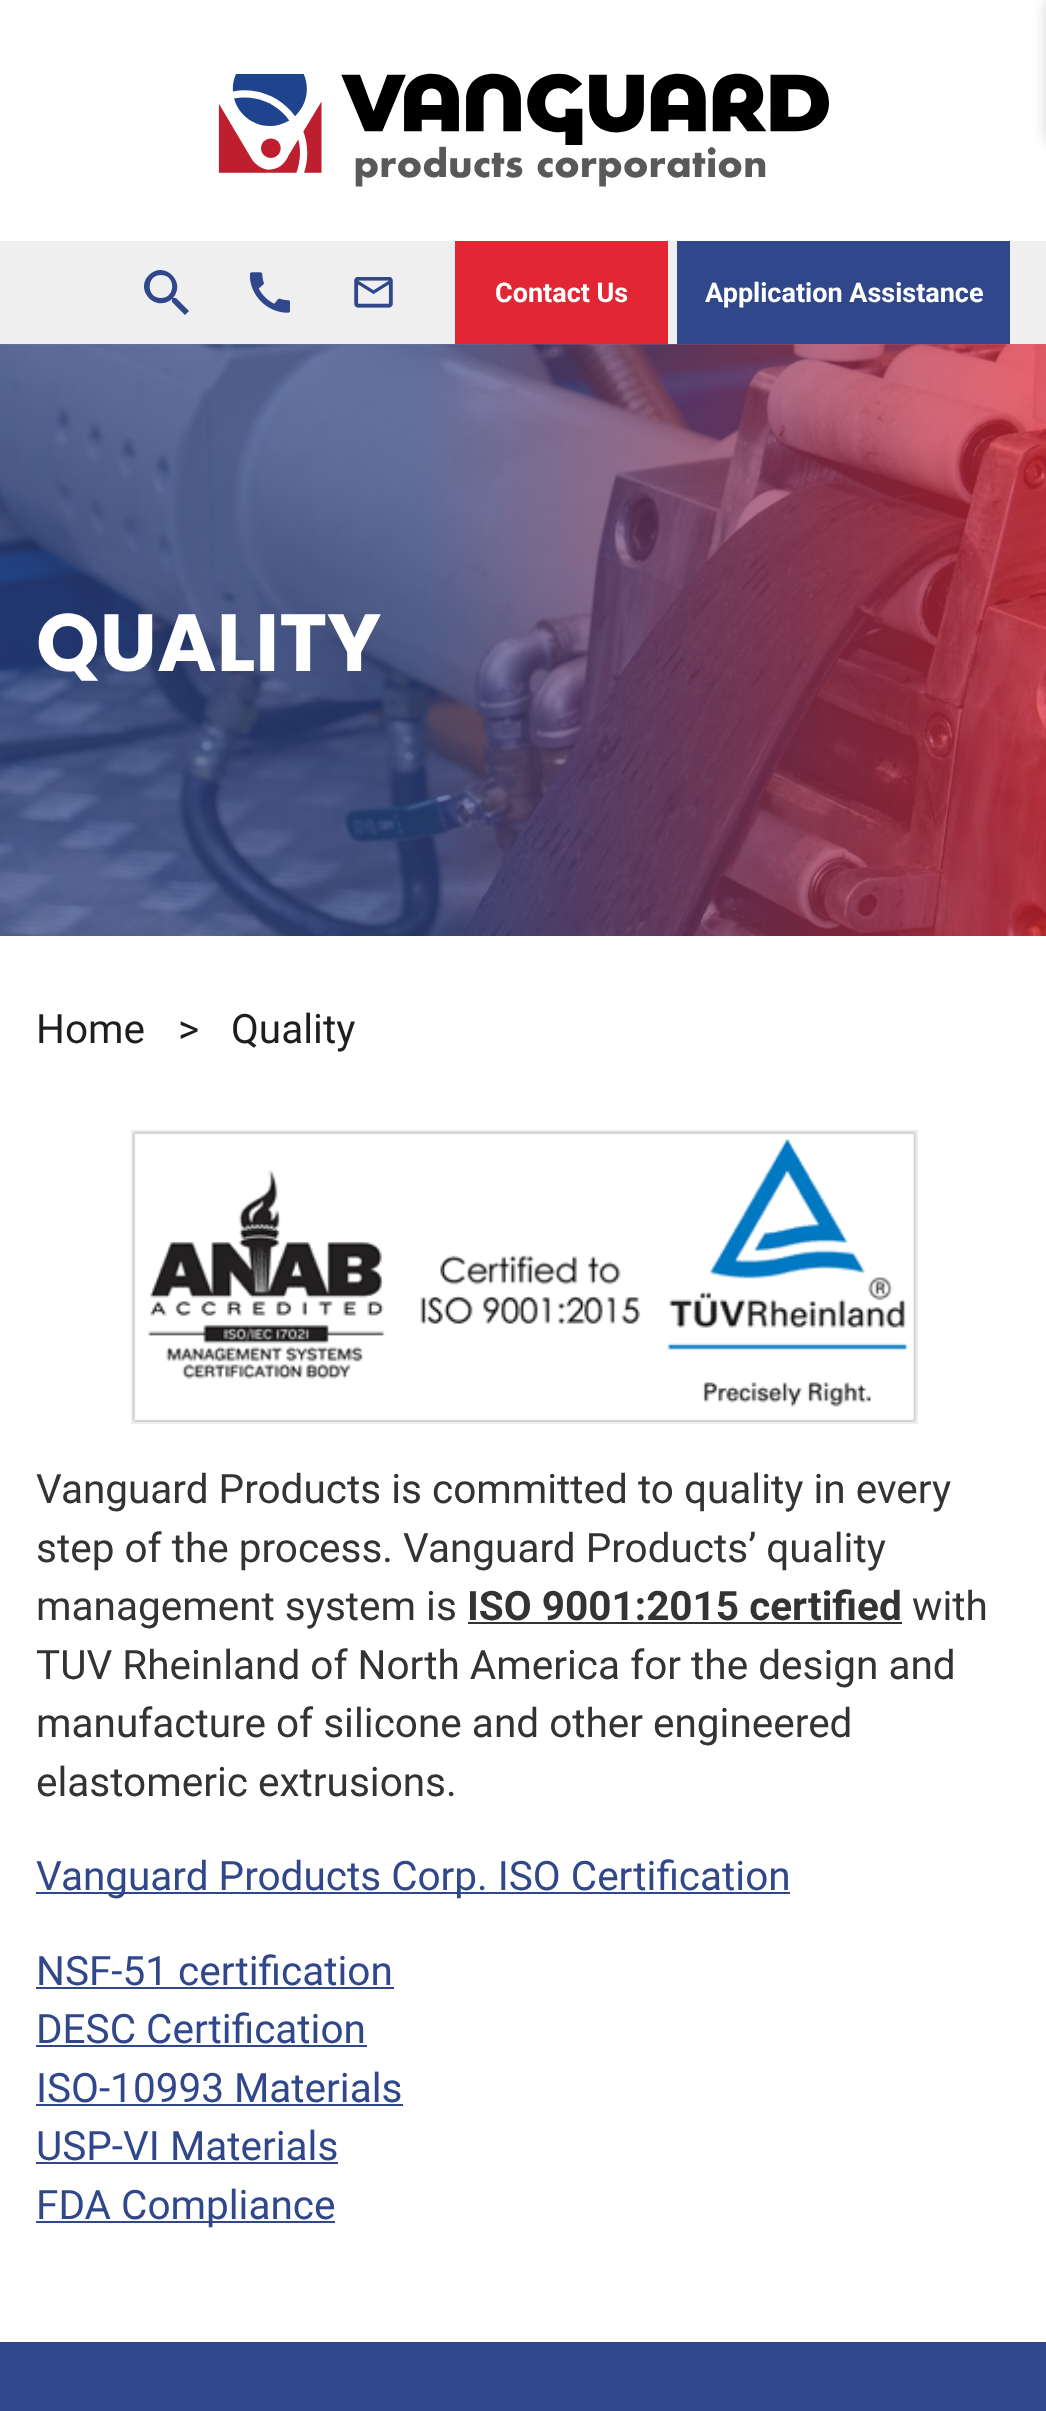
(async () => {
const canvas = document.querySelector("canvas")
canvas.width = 1046
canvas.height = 2411
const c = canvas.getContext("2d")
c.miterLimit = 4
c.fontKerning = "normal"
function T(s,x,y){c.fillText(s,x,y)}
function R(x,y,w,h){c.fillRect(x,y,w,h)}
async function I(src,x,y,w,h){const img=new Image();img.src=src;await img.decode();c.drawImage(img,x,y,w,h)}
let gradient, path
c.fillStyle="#fff"
R(0,0,1046,2411)
await I("1.png",218,73,611,114)
c.fillStyle="#00000029"
c.filter="blur(7px)"
c.beginPath()
c.rect(1046,0,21,142)
c.fill()
c.filter="none"
c.fillStyle="#efefef"
R(0,241,1046,103)
c.fillStyle="#30478b"
path = new Path2D("M176 298h-2h-1c14-16-9-38-24-23c-15 15 7 38 23 24v1v2l13 13l4-4zm-15 0c-15 0-15-23 0-23c15 0 15 23 0 23z")
c.fill(path)
await I("2.png",250,272,40,41)
await I("3.png",354,277,39,31)
c.fillStyle="#e32634"
R(455,241,213,103)
c.font="bold 27px Roboto"
c.fillStyle="#fff"
T("Contact Us",495,302)
c.fillStyle="#30478b"
R(677,241,333,103)
c.fillStyle="#fff"
T("Application Assistance",705,302)
await I("4.png",0,344,1046,592)
gradient = c.createLinearGradient(0,640,1046,640)
gradient.addColorStop(.4,"#30478bb3")
gradient.addColorStop(1,"#e32634b3")
c.fillStyle = gradient
R(0,344,1046,592)
c.font="bold 81px Poppins"
c.fillStyle="#fff"
T("QUALITY",36,671)
c.font="40.5px Roboto"
c.fillStyle="#1e1e1e"
T("Home",36,1043)
T(">",178,1043)
T("Quality",231,1043)
c.strokeStyle="#eee"
c.lineWidth=2
c.strokeRect(132,1131,785,292)
await I("5.png",132,1131,784,291)
c.fillStyle="#333"
T("Vanguard Products is committed to quality in every",36,1503)
T("step of the process. Vanguard Products’ quality",36,1562)
T("management system is",36,1620)
c.font="bold 40.5px Roboto"
T("ISO 9001:2015 certified",467,1620)
R(468,1622,434,2)
c.font="40.5px Roboto"
T("with",912,1620)
T("TUV Rheinland of North America for the design and",36,1679)
T("manufacture of silicone and other engineered",36,1737)
T("elastomeric extrusions.",36,1796)
c.fillStyle="#30478b"
R(36,1892,754,2)
T("Vanguard Products Corp. ISO Certification",36,1890)
T("NSF-51 certification",36,1985)
R(36,1987,358,2)
T("DESC Certification",36,2043)
R(36,2045,331,2)
T("ISO-10993 Materials",36,2102)
R(36,2104,367,2)
T("USP-VI Materials",36,2160)
R(36,2162,302,2)
R(36,2221,299,2)
T("FDA Compliance",36,2219)
R(0,2342,1046,69)
})()
